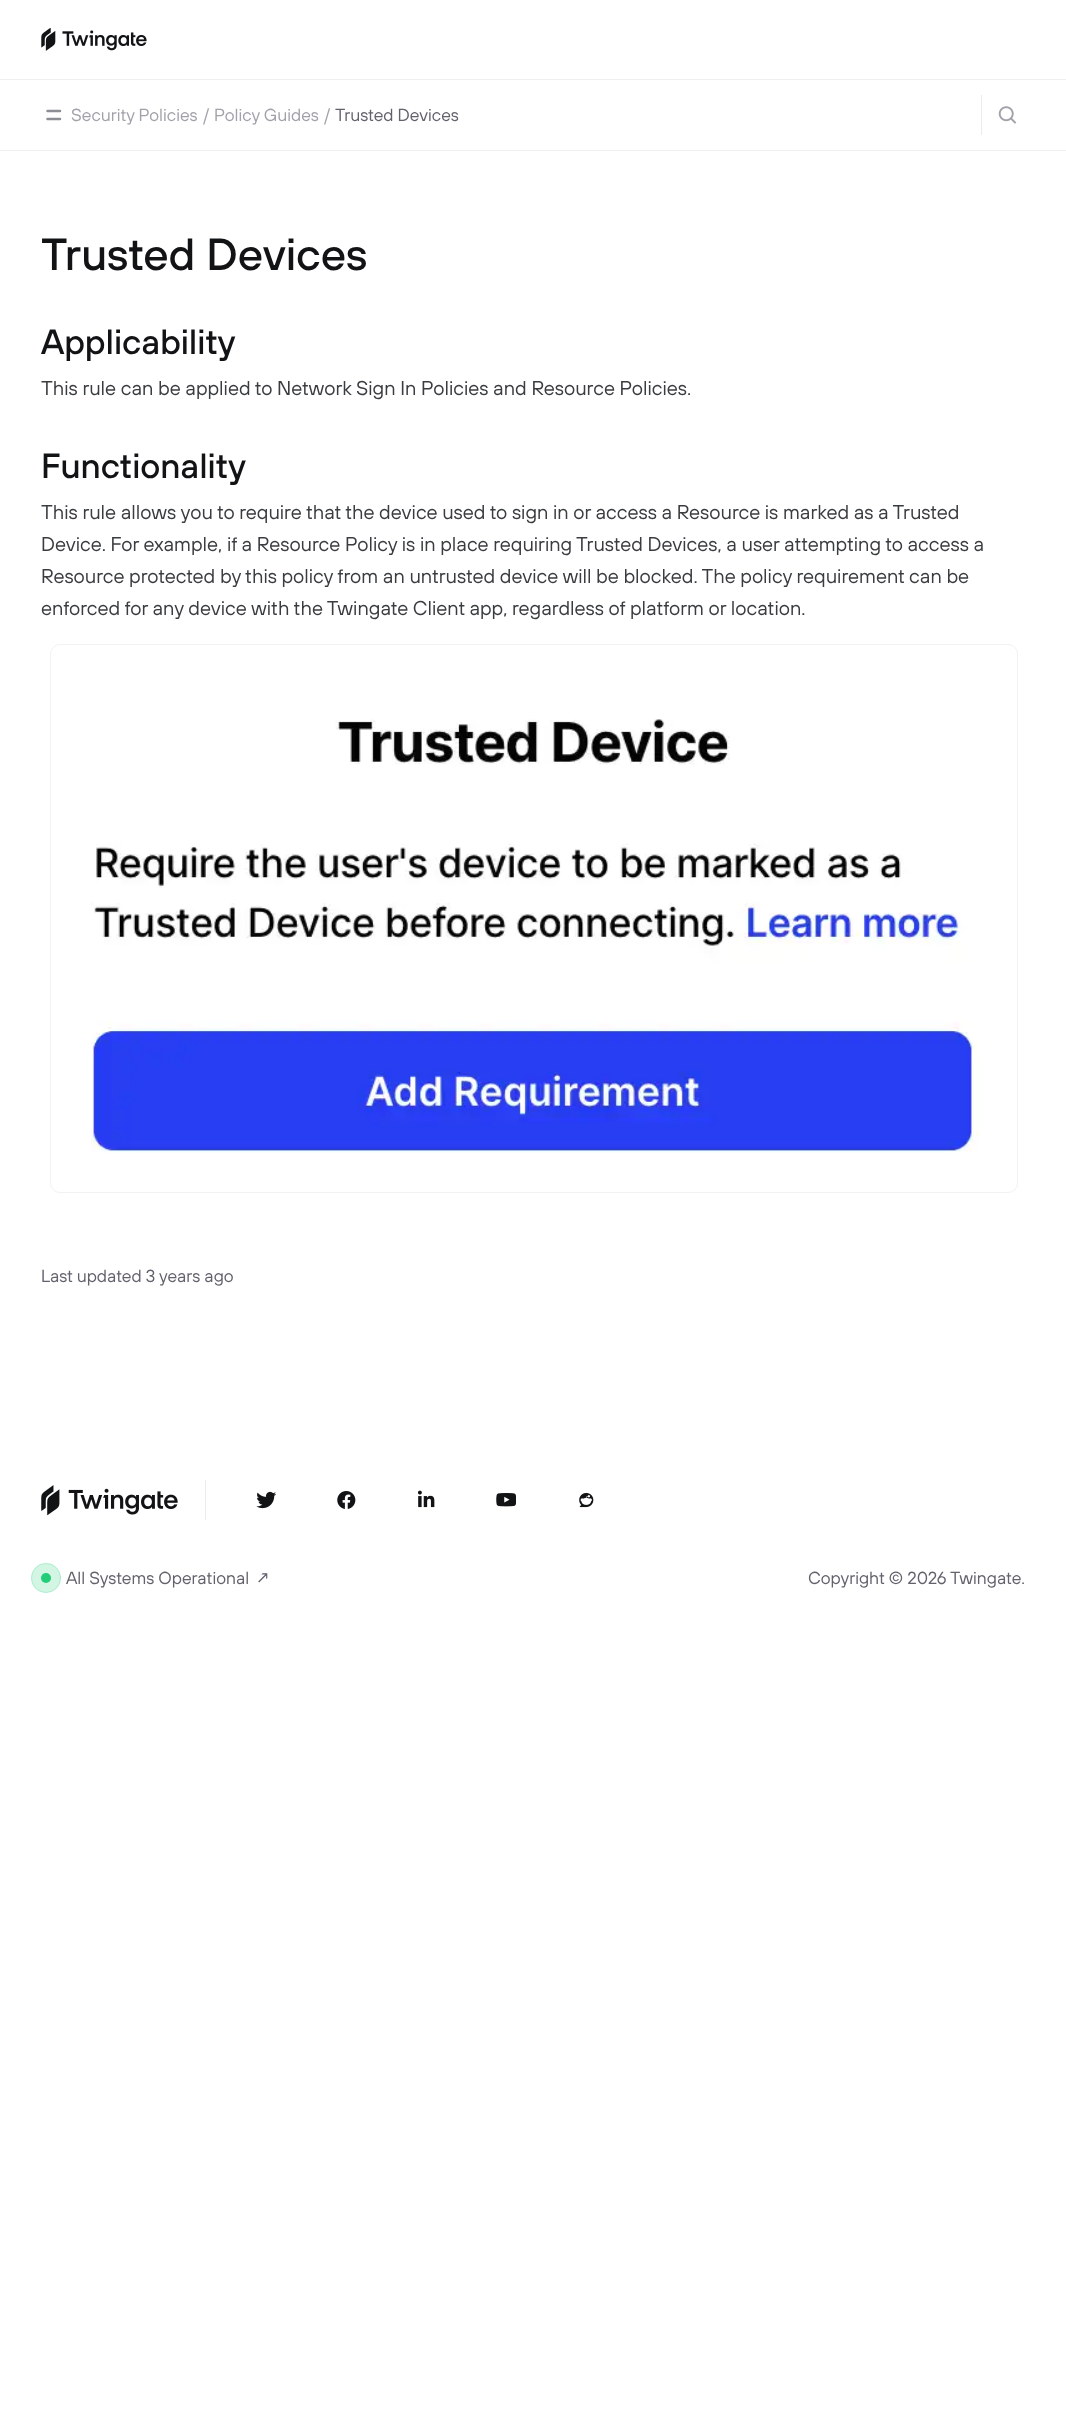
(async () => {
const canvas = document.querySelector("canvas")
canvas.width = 1066
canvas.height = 2414
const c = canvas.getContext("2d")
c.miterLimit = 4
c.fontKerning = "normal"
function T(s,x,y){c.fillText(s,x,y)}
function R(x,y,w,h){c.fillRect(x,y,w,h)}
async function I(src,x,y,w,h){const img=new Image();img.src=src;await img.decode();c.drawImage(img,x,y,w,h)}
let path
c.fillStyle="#fff"
R(0,0,1066,2414)
c.fillStyle="#eff0f2"
R(0,79,1066,1)
await I("1.png",41,28,106,23)
R(0,150,1066,1)
path = new Path2D("M47.5 111h12.5m-12.5 8h12.5")
c.strokeStyle="#8d8d96"
c.lineWidth=2.5
c.lineCap="round"
c.stroke(path)
c.font="17.5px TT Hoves"
c.fillStyle="#a1a1aa"
T("Security Policies",71,121)
T("/",203,121)
T("Policy Guides",214,121)
T("/",324,121)
c.fillStyle="#61626b"
T("Trusted Devices",335,121)
c.fillStyle="#ebebeb"
R(981,95,1,40)
await I("2.png",998,106,19,18)
c.letterSpacing="-0.1px"
c.font="500 45px TT Hoves"
c.fillStyle="#121315"
T("Trusted Devices",41,270)
c.font="500 35px TT Hoves"
T("Applicability",41,354)
c.letterSpacing="0px"
c.font="20px TT Hoves"
c.fillStyle="#3a3d40"
T("This rule can be applied to Network Sign In Policies and Resource Policies.",41,395)
c.letterSpacing="-0.1px"
c.font="500 35px TT Hoves"
c.fillStyle="#121315"
T("Functionality",41,478)
c.letterSpacing="0px"
c.font="20px TT Hoves"
c.fillStyle="#3a3d40"
T("This rule allows you to require that the device used to sign in or access a Resource is marked as a Trusted",41,519)
T("Device. For example, if a Resource Policy is in place requiring Trusted Devices, a user attempting to access a",41,551)
T("Resource protected by this policy from an untrusted device will be blocked. The policy requirement can be",41,583)
T("enforced for any device with the Twingate Client app, regardless of platform or location.",41,615)
c.beginPath()
c.roundRect(50.5,644.5,967,548,9.5)
c.strokeStyle="#f2f2f2"
c.lineWidth=1
c.stroke()
await I("3.png",91,719,889,434)
c.font="17.5px TT Hoves"
c.fillStyle="#61626b"
T("Last updated 3 years ago",41,1282)
await I("4.png",41,1485,137,31)
c.fillStyle="#ebebeb"
R(205,1480,1,40)
await I("5.png",256,1491,20,18)
await I("6.png",337,1491,19,18)
await I("7.png",417,1490,18,18)
await I("8.png",496,1493,20,14)
await I("9.png",579,1492,15,16)
c.fillStyle="#22ce78"
c.beginPath()
c.arc(46,1578,5,0,7)
c.fill()
c.fillStyle="#22ce7833"
c.beginPath()
c.arc(46,1578,15,0,7)
c.fill()
c.beginPath()
c.arc(46,1578,14.5,0,7)
c.strokeStyle="#22ce7833"
c.stroke()
c.fillStyle="#61626b"
T("All Systems Operational",66,1584)
T("↗",254,1584)
T("Copyright © 2026",808,1584)
T("Twingate.",950,1584)
})()
